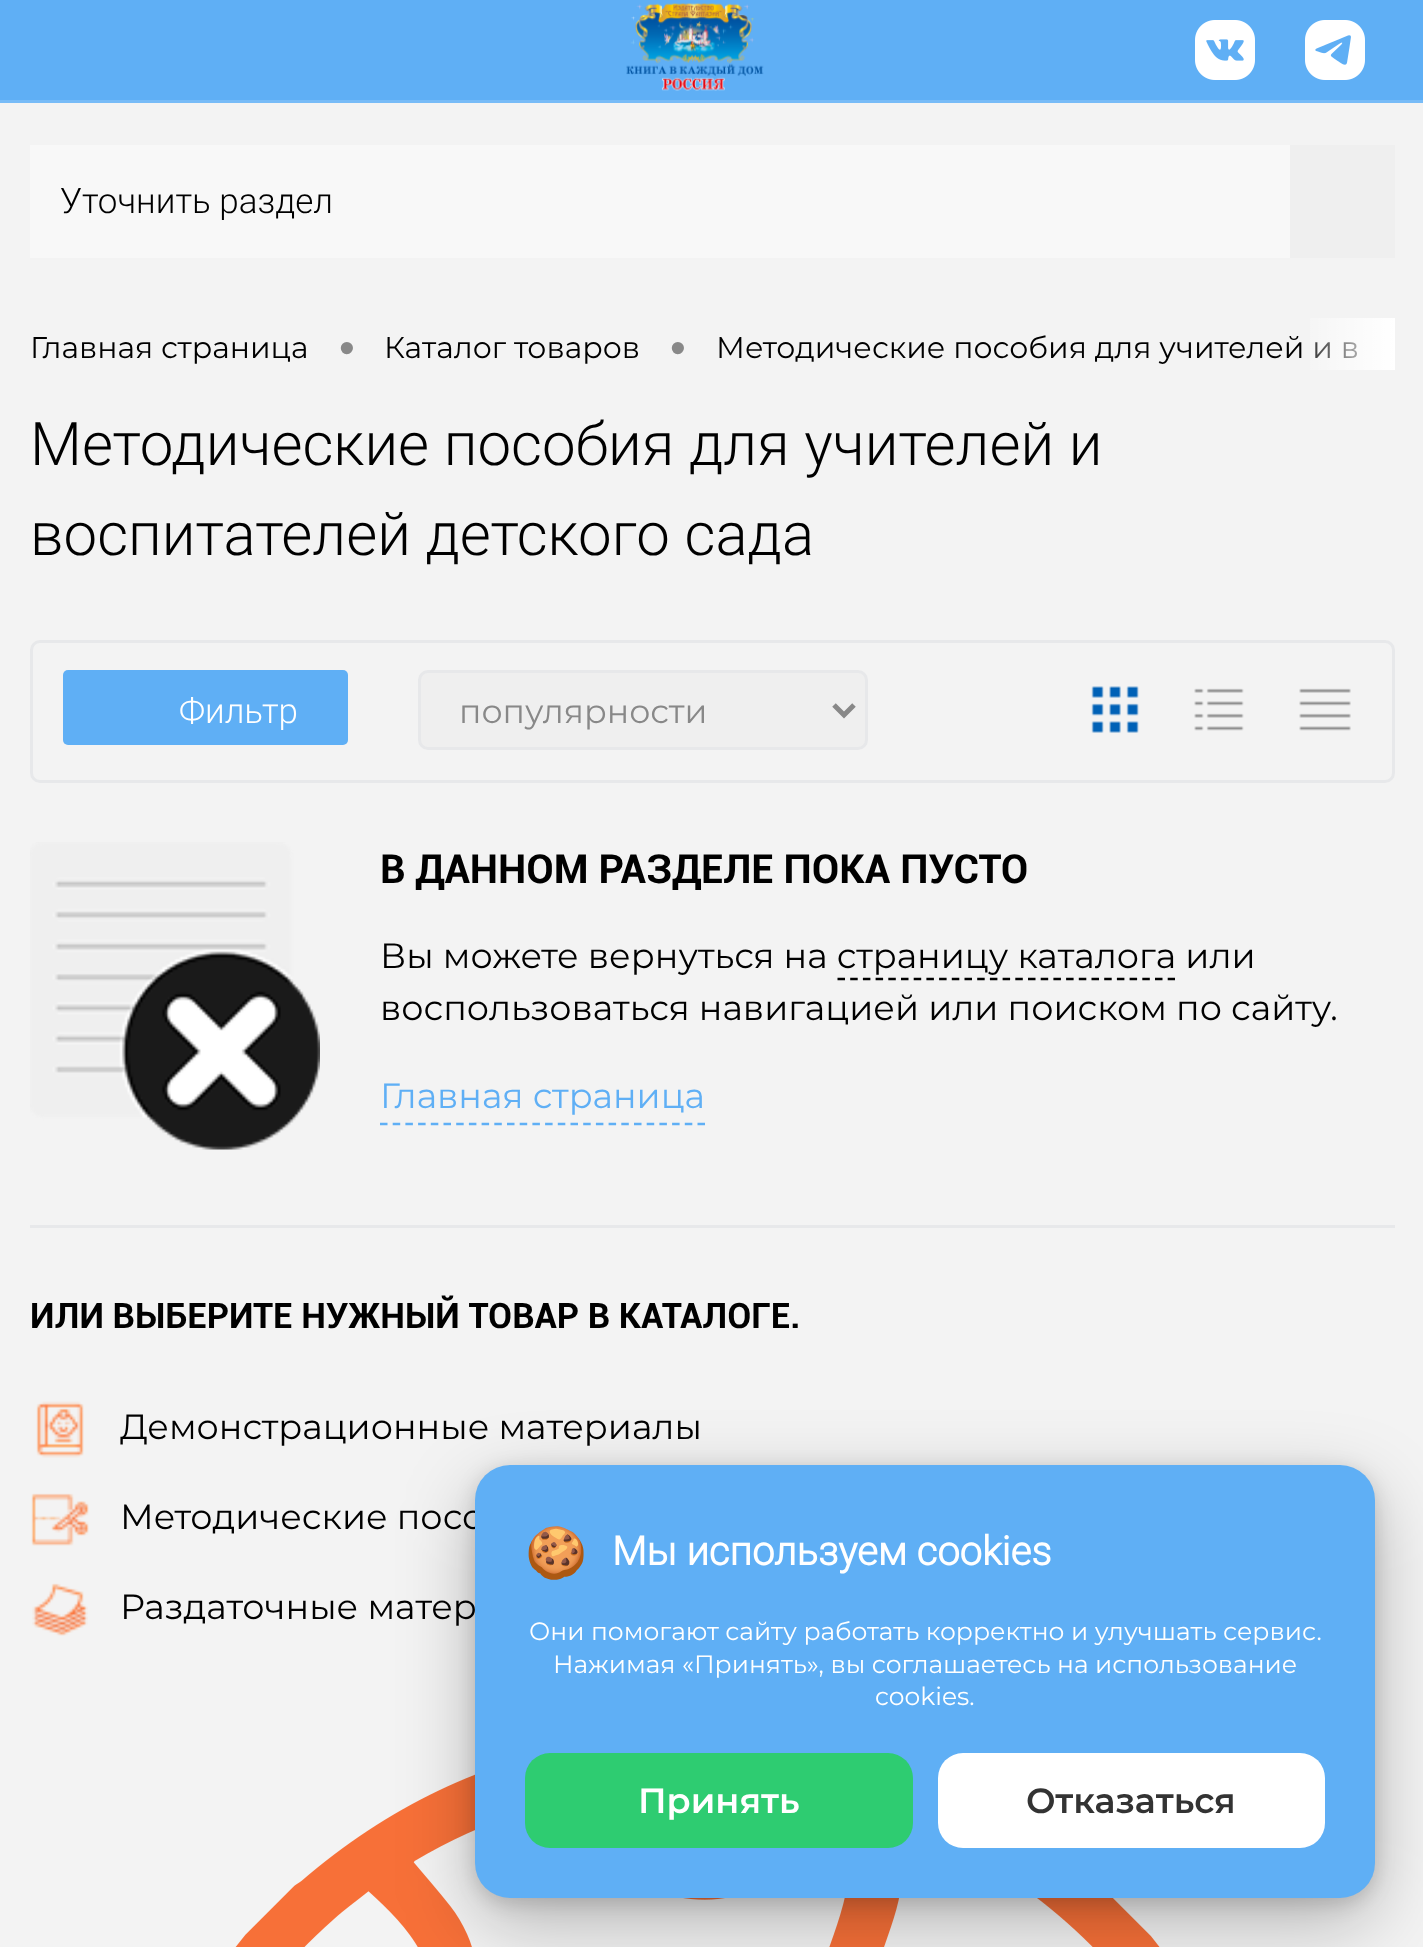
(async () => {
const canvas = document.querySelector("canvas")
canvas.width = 1423
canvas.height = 1947
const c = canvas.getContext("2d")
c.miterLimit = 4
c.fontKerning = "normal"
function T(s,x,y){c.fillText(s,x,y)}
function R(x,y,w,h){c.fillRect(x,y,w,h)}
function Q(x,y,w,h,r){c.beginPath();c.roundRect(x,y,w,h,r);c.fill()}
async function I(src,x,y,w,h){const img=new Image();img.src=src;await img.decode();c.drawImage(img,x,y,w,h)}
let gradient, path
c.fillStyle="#f3f3f3"
R(0,0,1423,1947)
c.fillStyle="#5faff5"
R(0,0,1423,100)
c.fillStyle="#77bbf7"
R(0,100,1423,3)
await I("1.png",626,3,138,88)
await I("2.png",1195,20,60,60)
await I("3.png",1305,20,60,60)
c.fillStyle="#f8f8f8"
R(30,145,1260,113)
c.font="300 35px Roboto"
c.fillStyle="#000"
T("Уточнить раздел",60,213)
c.fillStyle="#efefef"
R(1290,145,105,113)
c.font="30px Montserrat"
c.fillStyle="#000"
T("Методические пособия для учителей и в",716,358)
gradient = c.createLinearGradient(1308,344,1395,344)
gradient.addColorStop(0,"#ffffff33")
gradient.addColorStop(1,"#fff")
c.fillStyle = gradient
R(1310,318,85,52)
c.fillStyle="#000"
T("Главная страница",30,358)
c.font="45px Liberation Sans"
c.fillStyle="#888"
T("•",339,363)
c.font="30px Montserrat"
c.fillStyle="#000"
T("Каталог товаров",384,358)
c.font="45px Liberation Sans"
c.fillStyle="#888"
T("•",670,363)
c.font="300 60px Roboto"
c.fillStyle="#000"
T("Методические пособия для учителей и",30,465)
T("воспитателей детского сада",30,555)
c.beginPath()
c.roundRect(31.5,641.5,1362,140,8.5)
c.strokeStyle="#e7e8ea"
c.lineWidth=3
c.stroke()
c.fillStyle="#5faff5"
Q(63,670,285,75,5)
c.font="300 35px Roboto"
c.fillStyle="#fff"
T("Фильтр",179,723)
c.fillStyle="#efefef"
c.beginPath()
c.roundRect(419.5,671.5,447,77,8.5)
c.fill()
c.stroke()
path = new Path2D("M834 705l10 10l10-10")
c.strokeStyle="#888"
c.lineWidth=5
c.stroke(path)
c.font="33.25px Montserrat"
c.fillStyle="#888"
T("популярности",459,723)
await I("4.png",1091,686,48,47)
await I("5.png",1194,688,50,43)
await I("6.png",1299,688,52,43)
c.fillStyle="#e7e8ea"
R(30,1225,1365,3)
await I("7.png",30,842,290,308)
c.font="bold 40px Roboto"
c.fillStyle="#000"
T("В ДАННОМ РАЗДЕЛЕ ПОКА ПУСТО",380,883)
c.font="35px Montserrat"
T("Вы можете вернуться на страницу каталога или",380,968)
path = new Path2D("M837.5 979h337.5")
c.strokeStyle="#000"
c.lineWidth=2.5
c.setLineDash([7.5,5.2])
c.stroke(path)
T("воспользоваться навигацией или поиском по сайту.",380,1020)
c.fillStyle="#5faff5"
T("Главная страница",380,1108)
path = new Path2D("M380 1124h325")
c.strokeStyle="#5faff5"
c.stroke(path)
c.font="bold 35px Roboto"
c.fillStyle="#000"
T("ИЛИ ВЫБЕРИТЕ НУЖНЫЙ ТОВАР В КАТАЛОГЕ.",30,1328)
await I("8.png",36,1401,48,57)
c.font="35px Montserrat"
T("Демонстрационные материалы",120,1439)
await I("9.png",31,1493,58,53)
T("Методические посо",120,1529)
await I("10.png",32,1583,56,53)
T("Раздаточные матер",120,1619)
await I("11.png",235,1774,925,173)
c.fillStyle="#00000026"
c.filter="blur(10px)"
c.beginPath()
c.roundRect(475,1470,900,433,35)
c.fill()
c.filter="none"
c.fillStyle="#00000040"
c.filter="blur(37.5px)"
c.beginPath()
c.roundRect(475,1490,900,433,35)
c.fill()
c.filter="none"
c.fillStyle="#5faff5"
Q(475,1465,900,433,35)
c.font="50px Noto Color Emoji"
c.fillStyle="#fff"
T("🍪",525,1570)
c.font="bold 40px 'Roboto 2'"
T("Мы используем cookies",612,1565)
c.font="25px Montserrat"
T("Они помогают сайту работать корректно и улучшать сервис.",529,1640)
T("Нажимая «Принять», вы соглашаетесь на использование",553,1673)
T("cookies.",875,1705)
c.fillStyle="#2ecc71"
Q(525,1753,388,95,25)
c.font="600 35px Montserrat"
c.fillStyle="#fff"
T("Принять",638,1813)
Q(938,1753,387,95,25)
c.fillStyle="#333"
T("Отказаться",1026,1813)
})()
